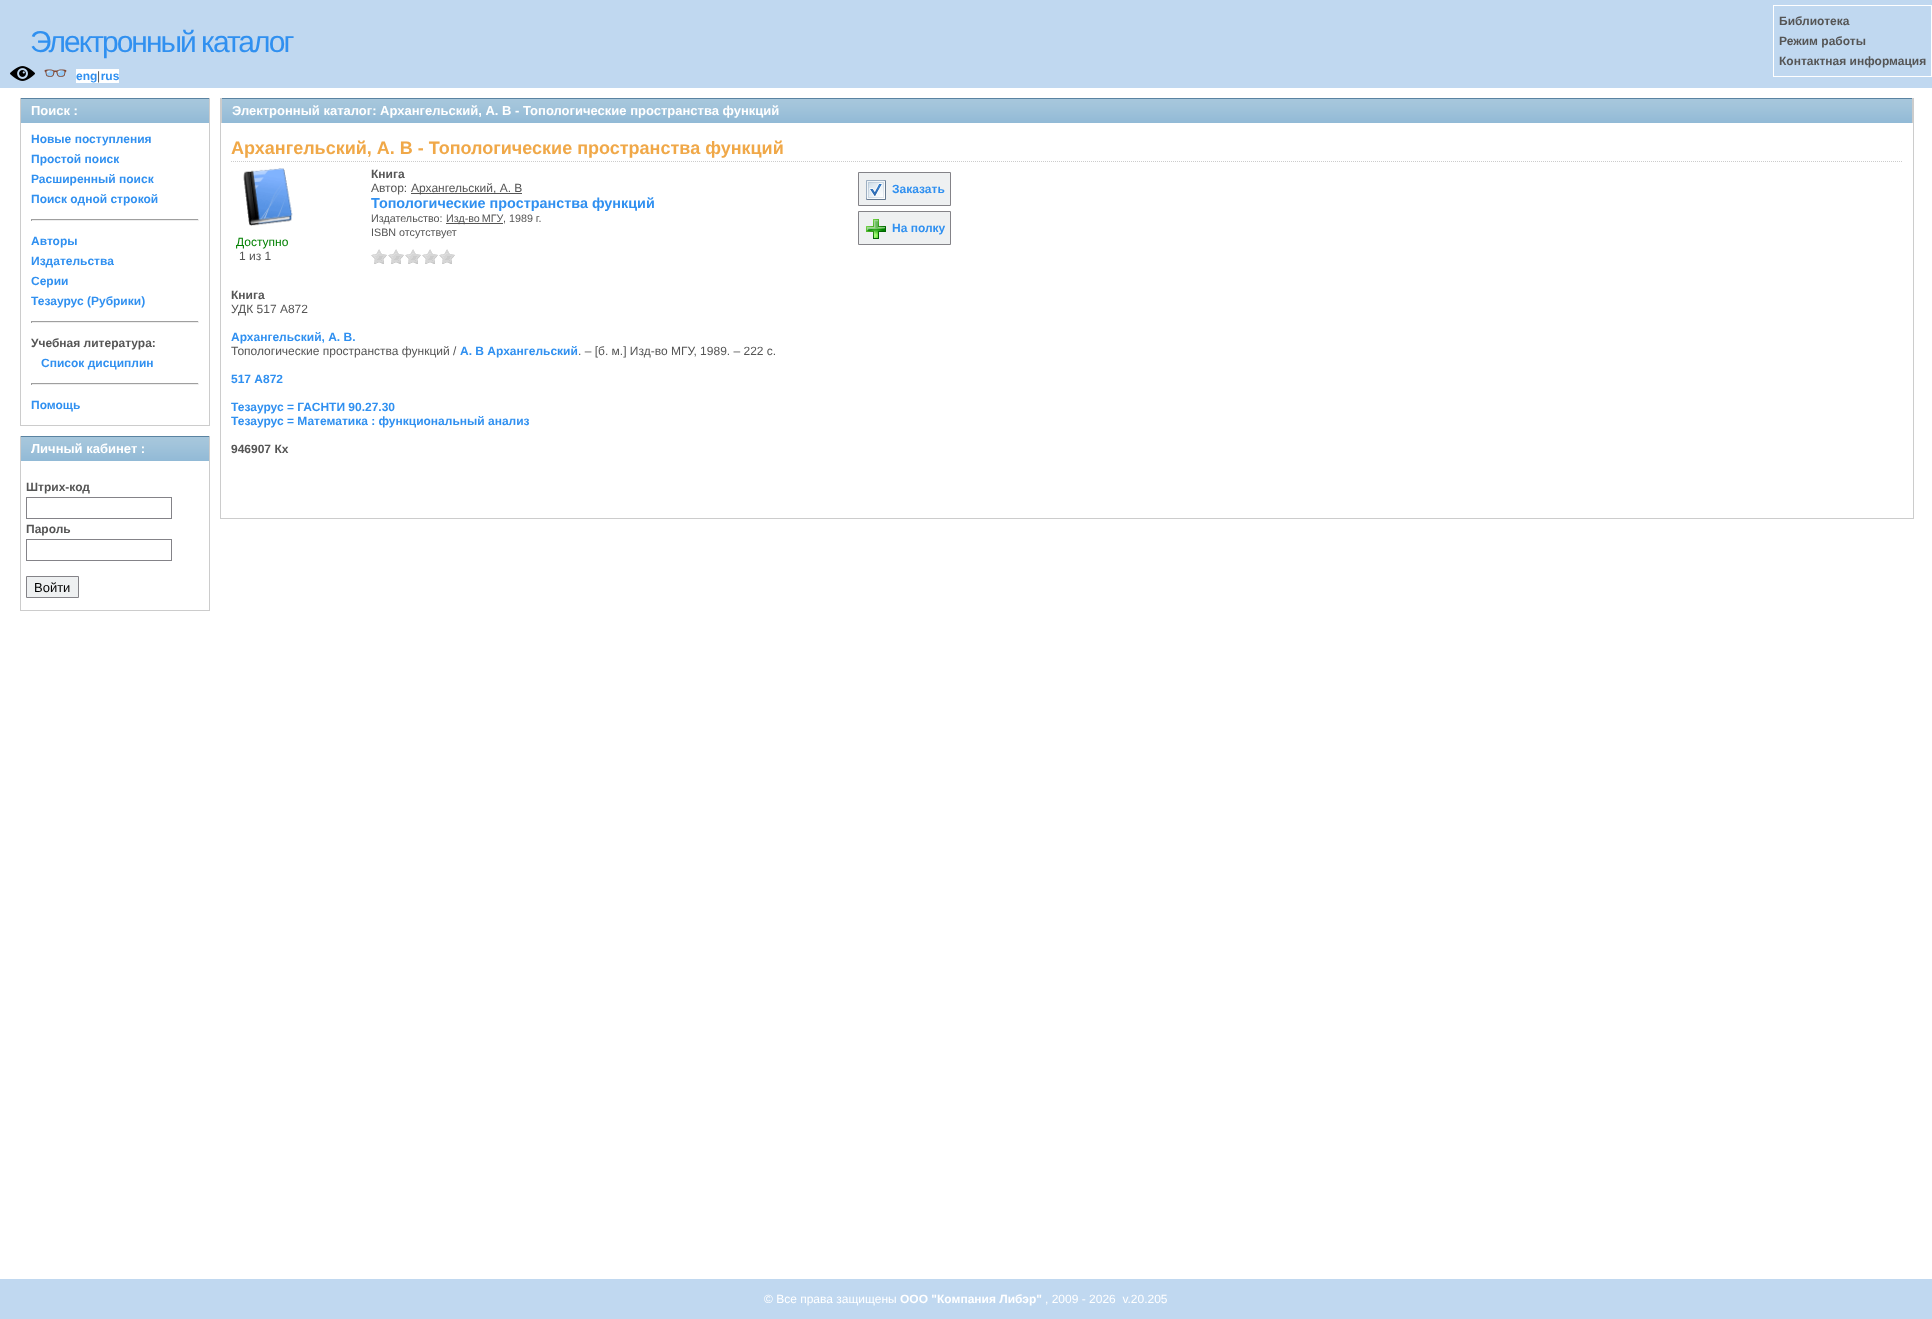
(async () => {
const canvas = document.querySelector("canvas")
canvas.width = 1932
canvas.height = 1319
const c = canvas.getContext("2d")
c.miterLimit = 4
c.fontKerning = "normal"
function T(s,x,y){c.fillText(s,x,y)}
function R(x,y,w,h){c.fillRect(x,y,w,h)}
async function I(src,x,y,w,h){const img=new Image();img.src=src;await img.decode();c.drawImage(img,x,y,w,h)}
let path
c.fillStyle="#fff"
R(0,0,1932,1319)
c.fillStyle="#c0d8f0"
R(0,0,1932,88)
c.letterSpacing="-2px"
c.font="30px Liberation Sans"
c.fillStyle="#3090f0"
T("Электронный каталог",30,52)
await I("1.png",10,66,25,15)
c.letterSpacing="0px"
c.font="bold 20px Noto Color Emoji"
T("👓",43,80)
c.fillStyle="#fff"
R(76,69,43,14)
c.font="bold 12px Liberation Sans"
c.fillStyle="#3090f0"
T("eng rus",76,80)
c.font="12px Liberation Sans"
c.fillStyle="#555"
T("|",97,80)
c.strokeStyle="#fff"
c.strokeRect(1773.5,5.5,158,71)
c.font="bold 12px Liberation Sans"
T("Библиотека",1779,25)
T("Режим работы",1779,45)
T("Контактная информация",1779,65)
await I("2.png",21,98,188,25)
c.fillStyle="#ccc"
R(209,98,1,328)
R(20,98,1,25)
c.font="bold 13px Liberation Sans"
c.fillStyle="#fff"
T("Поиск :",31,115)
c.fillStyle="#ccc"
R(20,425,190,1)
R(20,123,1,303)
c.font="bold 12px Liberation Sans"
c.fillStyle="#3090f0"
T("Новые поступления",31,143)
T("Простой поиск",31,163)
T("Расширенный поиск",31,183)
T("Поиск одной строкой",31,203)
c.fillStyle="#9f9f9f"
R(31,219,168,1)
c.fillStyle="#eee"
R(198,219,1,2)
R(31,220,168,1)
c.fillStyle="#9f9f9f"
R(31,219,1,2)
c.fillStyle="#3090f0"
T("Авторы",31,245)
T("Издательства",31,265)
T("Серии",31,285)
T("Тезаурус (Рубрики)",31,305)
c.fillStyle="#9f9f9f"
R(31,321,168,1)
c.fillStyle="#eee"
R(198,321,1,2)
R(31,322,168,1)
c.fillStyle="#9f9f9f"
R(31,321,1,2)
c.fillStyle="#555"
T("Учебная литература:",31,347)
c.fillStyle="#3090f0"
T("Список дисциплин",41,367)
c.fillStyle="#9f9f9f"
R(31,383,168,1)
c.fillStyle="#eee"
R(198,383,1,2)
R(31,384,168,1)
c.fillStyle="#9f9f9f"
R(31,383,1,2)
c.fillStyle="#3090f0"
T("Помощь",31,409)
await I("2.png",21,436,188,25)
c.fillStyle="#ccc"
R(209,436,1,175)
R(20,436,1,25)
c.font="bold 13px Liberation Sans"
c.fillStyle="#fff"
T("Личный кабинет :",31,453)
c.fillStyle="#ccc"
R(20,610,190,1)
R(20,461,1,150)
c.font="bold 12px Liberation Sans"
c.fillStyle="#555"
T("Штрих-код",26,491)
c.strokeStyle="#848388"
c.strokeRect(26.5,497.5,145,21)
T("Пароль",26,533)
c.strokeRect(26.5,539.5,145,21)
c.fillStyle="#eef0f1"
c.beginPath()
c.rect(26.5,576.5,52,21)
c.fill()
c.stroke()
c.font="13px Liberation Sans"
c.fillStyle="#000"
T("Войти",34,592)
c.fillStyle="#ccc"
R(1913,98,1,421)
R(220,518,1694,1)
R(220,98,1,421)
await I("3.png",222,98,1690,25)
R(1912,98,1,25)
R(221,98,1,25)
c.font="bold 13px Liberation Sans"
c.fillStyle="#fff"
T("Электронный каталог: Архангельский, А. В - Топологические пространства функций",232,115)
path = new Path2D("M231 161.5h1672")
c.strokeStyle="#ccc"
c.setLineDash([1,1])
c.stroke(path)
c.font="bold 18px Liberation Sans"
c.fillStyle="#f0a848"
T("Архангельский, А. В - Топологические пространства функций",231,154)
c.font="bold 12px Liberation Sans"
c.fillStyle="#555"
T("Книга",371,178)
c.font="12px Liberation Sans"
T("Автор:",371,192)
R(411,193,111,1)
T("Архангельский, А. В",411,192)
c.font="bold 14.4px Liberation Sans"
c.fillStyle="#3090f0"
T("Топологические пространства функций",371,208)
c.font="10.75px Liberation Sans"
c.fillStyle="#555"
T("Издательство:",371,222)
R(446,223,57,1)
c.wordSpacing="-1px"
T("Изд-во МГУ",446,222)
c.wordSpacing="0px"
T(", 1989 г.",503,222)
T("ISBN отсутствует",371,236)
await I("4.png",371,249,16,15)
await I("4.png",388,249,16,15)
await I("4.png",405,249,16,15)
await I("4.png",422,249,16,15)
await I("4.png",439,249,16,15)
c.fillStyle="#eef0f1"
c.beginPath()
c.rect(858.5,172.5,92,33)
c.fill()
c.strokeStyle="#848388"
c.setLineDash([])
c.stroke()
await I("5.png",866,180,20,20)
c.font="bold 12px Liberation Sans"
c.fillStyle="#3090f0"
T("Заказать",892,193)
c.fillStyle="#eef0f1"
c.beginPath()
c.rect(858.5,211.5,92,33)
c.fill()
c.stroke()
await I("6.png",866,219,20,20)
c.fillStyle="#3090f0"
T("На полку",892,232)
await I("7.png",243,168,50,58)
c.font="12px Liberation Sans"
c.fillStyle="#008000"
T("Доступно",236,246)
c.fillStyle="#555"
T("1 из 1",239,260)
c.font="bold 12px Liberation Sans"
T("Книга",231,299)
c.font="12px Liberation Sans"
T("УДК 517 А872",231,313)
c.font="bold 12px Liberation Sans"
c.fillStyle="#3090f0"
T("Архангельский, А. В.",231,341)
c.font="12px Liberation Sans"
c.fillStyle="#555"
T("Топологические пространства функций /",231,355)
c.font="bold 12px Liberation Sans"
c.fillStyle="#3090f0"
T("А. В Архангельский",460,355)
c.font="12px Liberation Sans"
c.fillStyle="#555"
T(". – [б. м.] Изд-во МГУ, 1989. – 222 с.",578,355)
c.font="bold 12px Liberation Sans"
c.fillStyle="#3090f0"
T("517 А872",231,383)
T("Тезаурус = ГАСНТИ 90.27.30",231,411)
T("Тезаурус = Математика : функциональный анализ",231,425)
c.fillStyle="#555"
T("946907 Кх",231,453)
c.fillStyle="#c0d8f0"
R(0,1279,1932,40)
c.font="12px Liberation Sans"
c.fillStyle="#fff"
T("© Все права защищены",764,1303)
c.font="bold 12px Liberation Sans"
T("ООО \"Компания Либэр\"",900,1303)
c.font="12px Liberation Sans"
T(", 2009 - 2026  v.20.205",1045,1303)
})()
